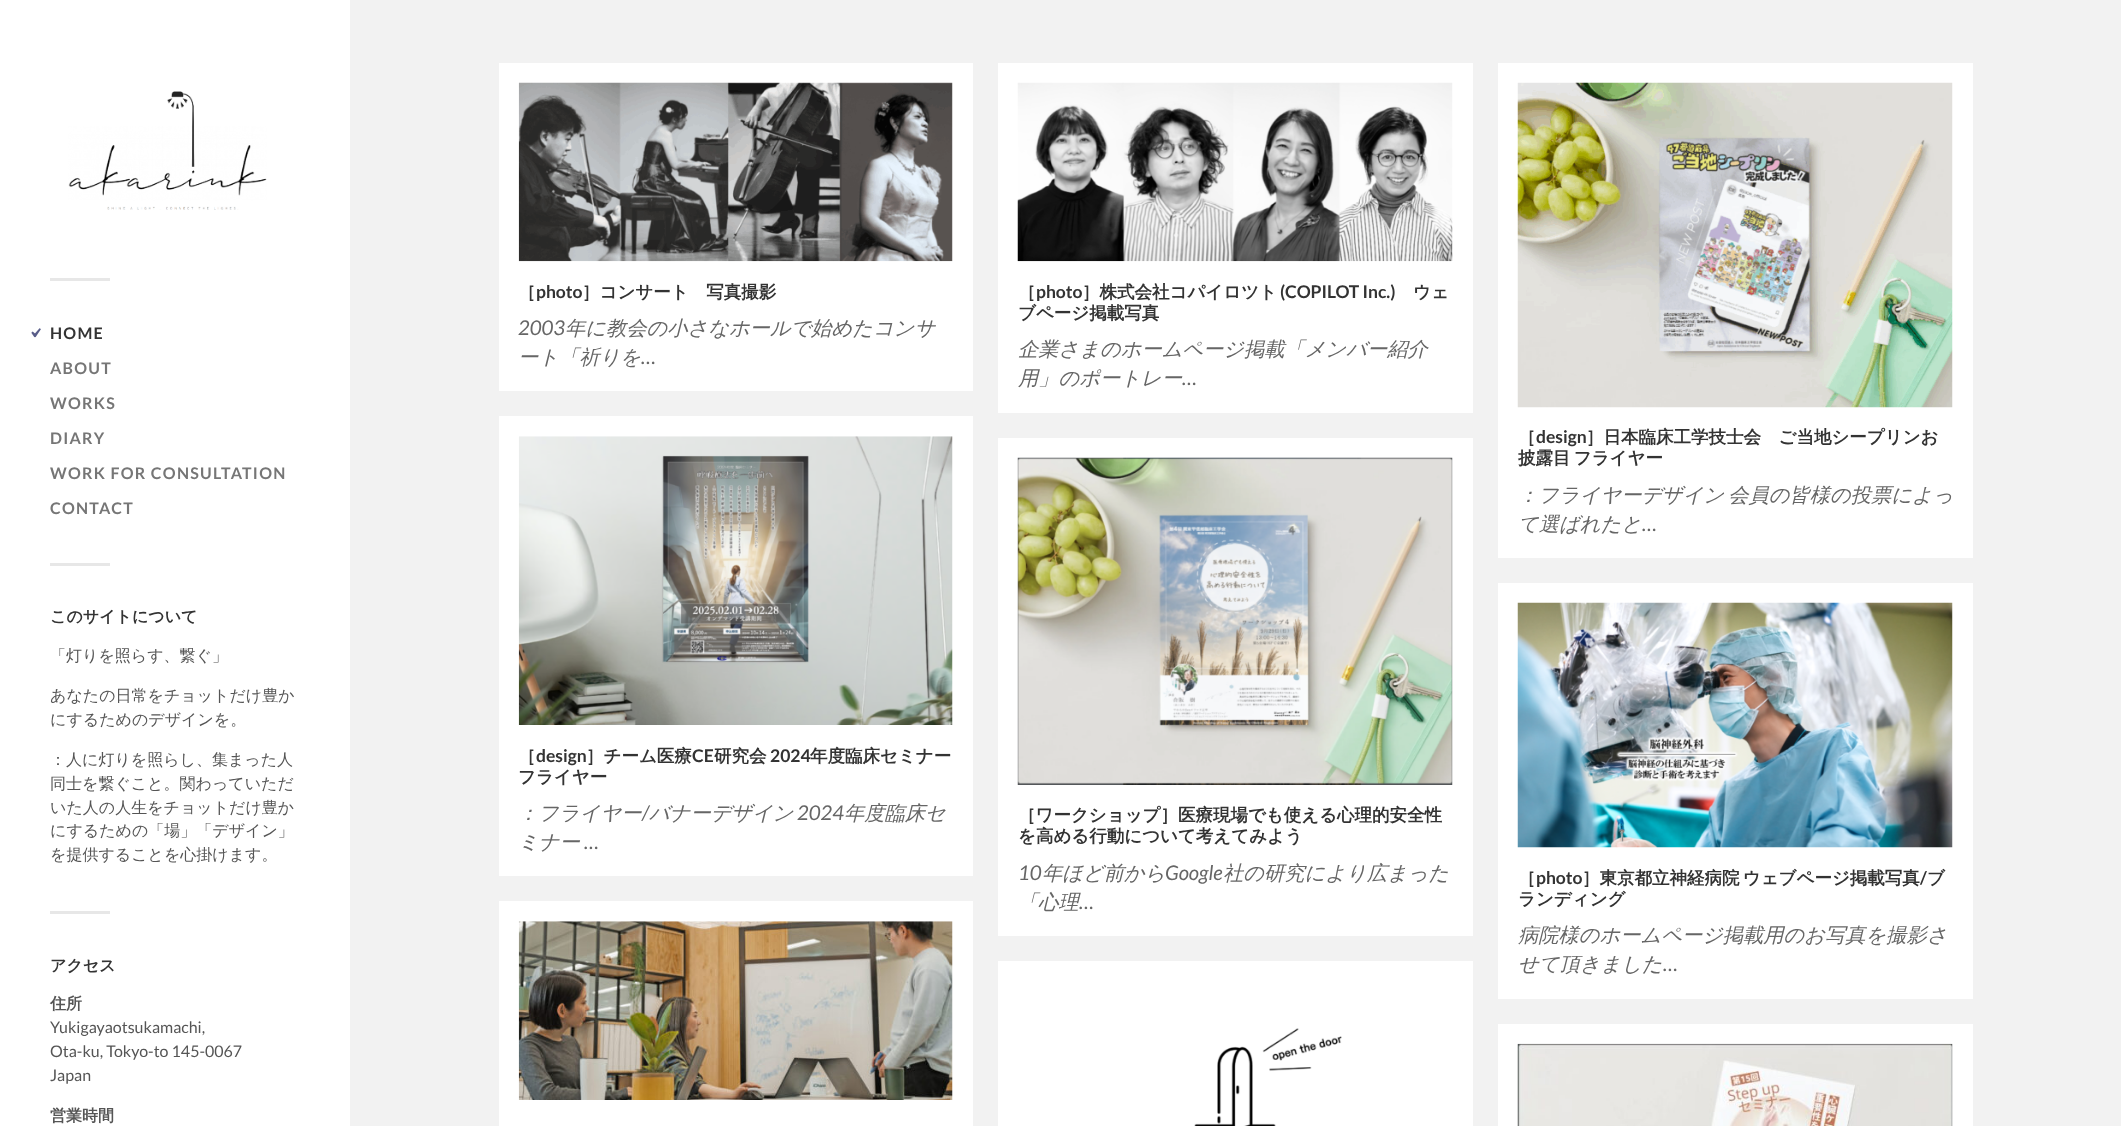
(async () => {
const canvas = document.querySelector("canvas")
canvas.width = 2121
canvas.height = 1126
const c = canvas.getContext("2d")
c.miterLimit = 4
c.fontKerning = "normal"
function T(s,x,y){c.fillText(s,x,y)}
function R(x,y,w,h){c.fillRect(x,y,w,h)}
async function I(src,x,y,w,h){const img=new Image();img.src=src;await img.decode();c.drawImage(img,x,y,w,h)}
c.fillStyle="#f2f2f2"
R(0,0,2121,1126)
c.fillStyle="#fff"
R(0,0,350,1126)
await I("1.png",68,91,199,119)
c.fillStyle="#e7e7e7"
R(50,278,60,3)
await I("2.png",31,328,10,10)
c.letterSpacing="1.25px"
c.font="bold 16px Lato"
c.fillStyle="#333"
T("HOME",50,339)
c.fillStyle="#767676"
T("ABOUT",50,374)
T("WORKS",50,409)
T("DIARY",50,444)
T("WORK FOR CONSULTATION",50,479)
T("CONTACT",50,514)
c.fillStyle="#e7e7e7"
R(50,563,60,3)
c.letterSpacing="0px"
c.font="bold 16px WenQuanYi Zen Hei"
c.fillStyle="#333"
T("このサイトについて",50,622)
c.font="500 16px WenQuanYi Zen Hei"
c.fillStyle="#555"
T("「灯りを照らす、繋ぐ」",50,661)
T("あなたの日常をチョットだけ豊か",50,701)
T("にするためのデザインを。",50,725)
T("：人に灯りを照らし、集まった人",50,765)
T("同士を繋ぐこと。関わっていただ",50,789)
T("いた人の人生をチョットだけ豊か",50,813)
T("にするための「場」「デザイン」",50,836)
T("を提供することを心掛けます。",50,860)
c.fillStyle="#e7e7e7"
R(50,911,60,3)
c.font="bold 16px WenQuanYi Zen Hei"
c.fillStyle="#333"
T("アクセス",50,971)
c.fillStyle="#555"
T("住所",50,1009)
c.font="16px Lato"
T("Yukigayaotsukamachi,",50,1033)
T("Ota-ku, Tokyo-to 145-0067",50,1057)
T("Japan",50,1081)
c.font="bold 16px WenQuanYi Zen Hei"
T("営業時間",50,1121)
c.fillStyle="#fff"
R(499,63,474,328)
await I("3.png",518,82,435,180)
c.font="bold 17.5px WenQuanYi Zen Hei"
c.fillStyle="#333"
T("［",518,298)
c.font="bold 17.5px Lato"
T("photo",536,298)
c.font="bold 17.5px WenQuanYi Zen Hei"
T("］コンサート　写真撮影",582,298)
c.font="italic 20.25px Lato"
c.fillStyle="#666"
T("2003",518,335)
c.font="italic 500 20.25px WenQuanYi Zen Hei"
T("年に教会の小さなホールで始めたコンサ",565,335)
T("ート「祈りを",518,364)
c.font="italic 20.25px Lato"
T("…",641,364)
c.fillStyle="#fff"
R(998,63,475,350)
await I("4.png",1017,82,436,180)
c.font="bold 17.5px WenQuanYi Zen Hei"
c.fillStyle="#333"
T("［",1018,298)
c.font="bold 17.5px Lato"
T("photo",1036,298)
c.font="bold 17.5px WenQuanYi Zen Hei"
T("］株式会社コパイロツト",1082,298)
c.font="bold 17.5px Lato"
T("(COPILOT Inc.)",1280,298)
c.font="bold 17.5px WenQuanYi Zen Hei"
T("ウェ",1413,298)
T("ブページ掲載写真",1018,319)
c.font="italic 500 20.25px WenQuanYi Zen Hei"
c.fillStyle="#666"
T("企業さまのホームページ掲載「メンバー紹介",1018,356)
T("用」のポートレー",1018,385)
c.font="italic 20.25px Lato"
T("…",1182,385)
c.fillStyle="#fff"
R(1498,63,475,495)
await I("5.png",1517,82,436,326)
c.font="bold 17.5px WenQuanYi Zen Hei"
c.fillStyle="#333"
T("［",1518,443)
c.font="bold 17.5px Lato"
T("design",1536,443)
c.font="bold 17.5px WenQuanYi Zen Hei"
T("］日本臨床工学技士会　ご当地シープリンお",1586,443)
c.wordSpacing="-2px"
T("披露目 フライヤー",1518,464)
c.font="italic 500 20.25px WenQuanYi Zen Hei"
c.fillStyle="#666"
T("：フライヤーデザイン 会員の皆様の投票によっ",1518,502)
c.wordSpacing="0px"
T("て選ばれたと",1518,531)
c.font="italic 20.25px Lato"
T("…",1642,531)
c.fillStyle="#fff"
R(499,416,474,460)
await I("6.png",518,436,435,289)
c.font="bold 17.5px WenQuanYi Zen Hei"
c.fillStyle="#333"
T("［",518,762)
c.font="bold 17.5px Lato"
T("design",536,762)
c.font="bold 17.5px WenQuanYi Zen Hei"
T("］チーム医療",586,762)
c.font="bold 17.5px Lato"
T("CE",692,762)
c.font="bold 17.5px WenQuanYi Zen Hei"
T("研究会",714,762)
c.font="bold 17.5px Lato"
T("2024",770,762)
c.font="bold 17.5px WenQuanYi Zen Hei"
T("年度臨床セミナー",810,762)
T("フライヤー",518,783)
c.font="italic 500 20.25px WenQuanYi Zen Hei"
c.fillStyle="#666"
T("：フライヤー",518,820)
c.font="italic 20.25px Lato"
T("/",642,820)
c.font="italic 500 20.25px WenQuanYi Zen Hei"
T("バナーデザイン",649,820)
c.font="italic 20.25px Lato"
T("2024",797,820)
c.font="italic 500 20.25px WenQuanYi Zen Hei"
T("年度臨床セ",844,820)
T("ミナー",518,849)
c.font="italic 20.25px Lato"
T("…",584,849)
c.fillStyle="#fff"
R(998,438,475,498)
await I("7.png",1017,457,436,328)
c.font="bold 17.5px WenQuanYi Zen Hei"
c.fillStyle="#333"
T("［ワークショップ］医療現場でも使える心理的安全性",1018,821)
T("を高める行動について考えてみよう",1018,842)
c.font="italic 20.25px Lato"
c.fillStyle="#666"
T("10",1018,880)
c.font="italic 500 20.25px WenQuanYi Zen Hei"
T("年ほど前から",1042,880)
c.font="italic 20.25px Lato"
T("Google",1165,880)
c.font="italic 500 20.25px WenQuanYi Zen Hei"
T("社の研究により広まった",1223,880)
T("「心理",1018,909)
c.font="italic 20.25px Lato"
T("…",1079,909)
c.fillStyle="#fff"
R(1498,583,475,416)
await I("8.png",1517,602,436,246)
c.font="bold 17.5px WenQuanYi Zen Hei"
c.fillStyle="#333"
T("［",1518,884)
c.font="bold 17.5px Lato"
T("photo",1536,884)
c.wordSpacing="-2px"
c.font="bold 17.5px WenQuanYi Zen Hei"
T("］東京都立神経病院 ウェブページ掲載写真",1582,884)
c.wordSpacing="0px"
c.font="bold 17.5px Lato"
T("/",1920,884)
c.font="bold 17.5px WenQuanYi Zen Hei"
T("ブ",1927,884)
T("ランディング",1518,905)
c.font="italic 500 20.25px WenQuanYi Zen Hei"
c.fillStyle="#666"
T("病院様のホームページ掲載用のお写真を撮影さ",1518,942)
T("せて頂きました",1518,971)
c.font="italic 20.25px Lato"
T("…",1663,971)
c.fillStyle="#fff"
R(499,901,474,225)
await I("9.png",518,921,435,179)
R(998,961,475,165)
await I("10.png",1194,1028,148,98)
R(1498,1024,475,102)
await I("11.png",1517,1043,436,83)
})()
